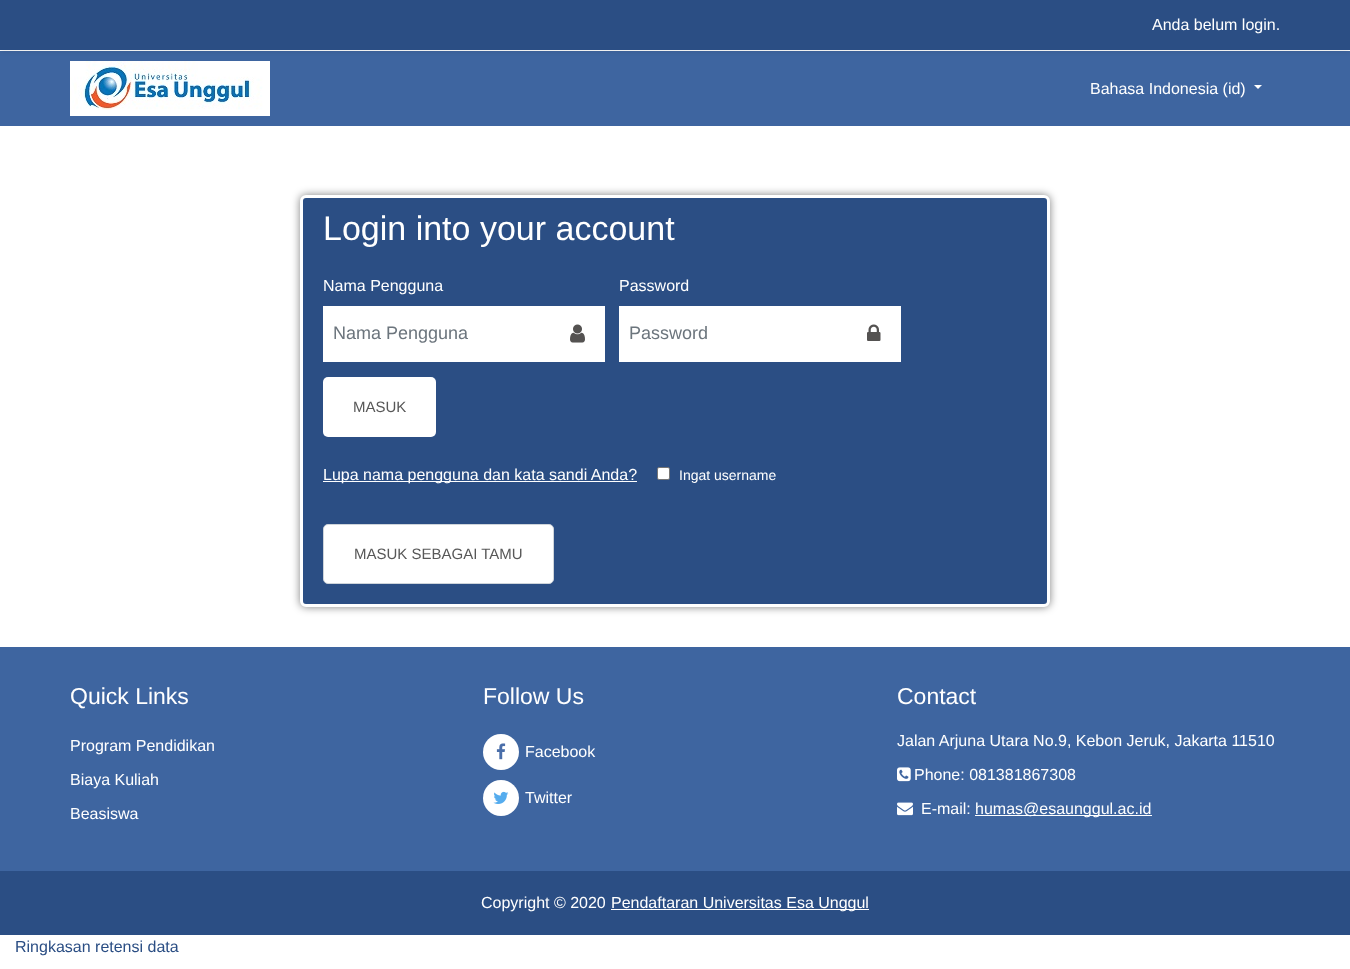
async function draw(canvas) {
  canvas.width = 1350
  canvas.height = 969
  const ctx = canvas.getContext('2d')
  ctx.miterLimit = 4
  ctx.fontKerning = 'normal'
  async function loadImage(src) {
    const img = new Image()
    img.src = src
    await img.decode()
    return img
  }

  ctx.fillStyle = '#fff'
  ctx.fillRect(0, 0, 1350, 969)
  ctx.fillStyle = '#3e65a0'
  ctx.fillRect(0, 51, 1350, 75)
  ctx.fillStyle = '#00000014'
  ctx.filter = 'blur(2px)'
  ctx.beginPath()
  ctx.rect(0, 2, 1350, 50)
  ctx.fill()
  ctx.filter = 'none'
  ctx.fillStyle = '#2b4e84'
  ctx.fillRect(0, 0, 1350, 50)
  ctx.font = '16px Liberation Sans'
  ctx.fillStyle = '#fff'
  ctx.fillText('Anda belum login.', 1152, 30)
  ctx.drawImage(await loadImage('image0.png'), 70, 61, 200, 55)
  ctx.fillText('Bahasa Indonesia (id)', 1090, 94)
  ctx.beginPath()
  ctx.moveTo(1254, 85)
  ctx.lineTo(1262, 85)
  ctx.lineTo(1258, 89)
  ctx.closePath()
  ctx.fill()
  ctx.fillStyle = '#00000080'
  ctx.filter = 'blur(4.5px)'
  ctx.beginPath()
  ctx.roundRect(300, 195, 750, 412, 6)
  ctx.fill()
  ctx.filter = 'none'
  ctx.fillStyle = '#2b4e84'
  ctx.beginPath()
  ctx.roundRect(301.5, 196.5, 747, 409, 4.5)
  ctx.fill()
  ctx.strokeStyle = '#fff'
  ctx.lineWidth = 3
  ctx.stroke()
  ctx.font = '34px Liberation Sans'
  ctx.fillStyle = '#fff'
  ctx.fillText('Login into your account', 323, 240)
  ctx.font = '16px Liberation Sans'
  ctx.fillText('Nama Pengguna', 323, 291)
  ctx.fillRect(323, 306, 282, 56)
  ctx.font = '18px Liberation Sans'
  ctx.fillStyle = '#6c757d'
  ctx.fillText('Nama Pengguna', 333, 339)
  ctx.drawImage(await loadImage('image1.png'), 570, 324, 15, 19)
  ctx.font = '16px Liberation Sans'
  ctx.fillStyle = '#fff'
  ctx.fillText('Password', 619, 291)
  ctx.fillRect(619, 306, 282, 56)
  ctx.font = '18px Liberation Sans'
  ctx.fillStyle = '#6c757d'
  ctx.fillText('Password', 629, 339)
  ctx.drawImage(await loadImage('image2.png'), 867, 324, 14, 17)
  ctx.fillStyle = '#fff'
  ctx.beginPath()
  ctx.roundRect(323, 377, 113, 60, 5)
  ctx.fill()
  ctx.font = '15px Liberation Sans'
  ctx.fillStyle = '#585858'
  ctx.fillText('MASUK', 353, 412)
  ctx.fillStyle = '#fff'
  ctx.fillRect(323, 481, 314, 1)
  ctx.font = '16px Liberation Sans'
  ctx.fillText('Lupa nama pengguna dan kata sandi Anda?', 323, 480)
  ctx.beginPath()
  ctx.roundRect(657.5, 467.5, 12, 12, 1.5)
  ctx.fill()
  ctx.strokeStyle = '#767676'
  ctx.lineWidth = 1
  ctx.stroke()
  ctx.font = '14px Liberation Sans'
  ctx.fillText('Ingat username', 679, 480)
  ctx.beginPath()
  ctx.roundRect(323.5, 524.5, 230, 59, 4.5)
  ctx.fill()
  ctx.strokeStyle = '#ced4da'
  ctx.stroke()
  ctx.font = '15px Liberation Sans'
  ctx.fillStyle = '#585858'
  ctx.fillText('MASUK SEBAGAI TAMU', 354, 559)
  ctx.fillStyle = '#3e65a0'
  ctx.fillRect(0, 647, 1350, 224)
  ctx.font = '23px Liberation Sans'
  ctx.fillStyle = '#fff'
  ctx.fillText('Quick Links', 70, 704)
  ctx.font = '16px Liberation Sans'
  ctx.fillText('Program Pendidikan', 70, 751)
  ctx.fillText('Biaya Kuliah', 70, 785)
  ctx.fillText('Beasiswa', 70, 819)
  ctx.font = '23px Liberation Sans'
  ctx.fillText('Follow Us', 483, 704)
  ctx.beginPath()
  ctx.arc(501, 752, 18, 0, 2 * Math.PI)
  ctx.fill()
  ctx.drawImage(await loadImage('image3.png'), 496, 743, 10, 17)
  ctx.font = '16px Liberation Sans'
  ctx.fillText('Facebook', 525, 757)
  ctx.beginPath()
  ctx.arc(501, 798, 18, 0, 2 * Math.PI)
  ctx.fill()
  ctx.drawImage(await loadImage('image4.png'), 493, 791, 16, 13)
  ctx.fillText('Twitter', 525, 803)
  ctx.font = '23px Liberation Sans'
  ctx.fillText('Contact', 897, 704)
  ctx.font = '16px Liberation Sans'
  ctx.fillText('Jalan Arjuna Utara No.9, Kebon Jeruk, Jakarta 11510', 897, 746)
  ctx.drawImage(await loadImage('image5.png'), 897, 767, 14, 15)
  ctx.fillText('Phone: 081381867308', 914, 780)
  ctx.drawImage(await loadImage('image6.png'), 897, 802, 16, 14)
  ctx.fillText('E-mail:', 921, 814)
  ctx.fillRect(975, 815, 177, 1)
  ctx.fillText('humas@esaunggul.ac.id', 975, 814)
  ctx.fillStyle = '#2b4e84'
  ctx.fillRect(0, 871, 1350, 64)
  ctx.fillStyle = '#fff'
  ctx.fillText('Copyright © 2020', 481, 908)
  ctx.fillRect(611, 909, 258, 1)
  ctx.fillText('Pendaftaran Universitas Esa Unggul', 611, 908)
  ctx.fillStyle = '#2b4e84'
  ctx.fillText('Ringkasan retensi data', 15, 952)
}

draw(document.querySelector('canvas'))
